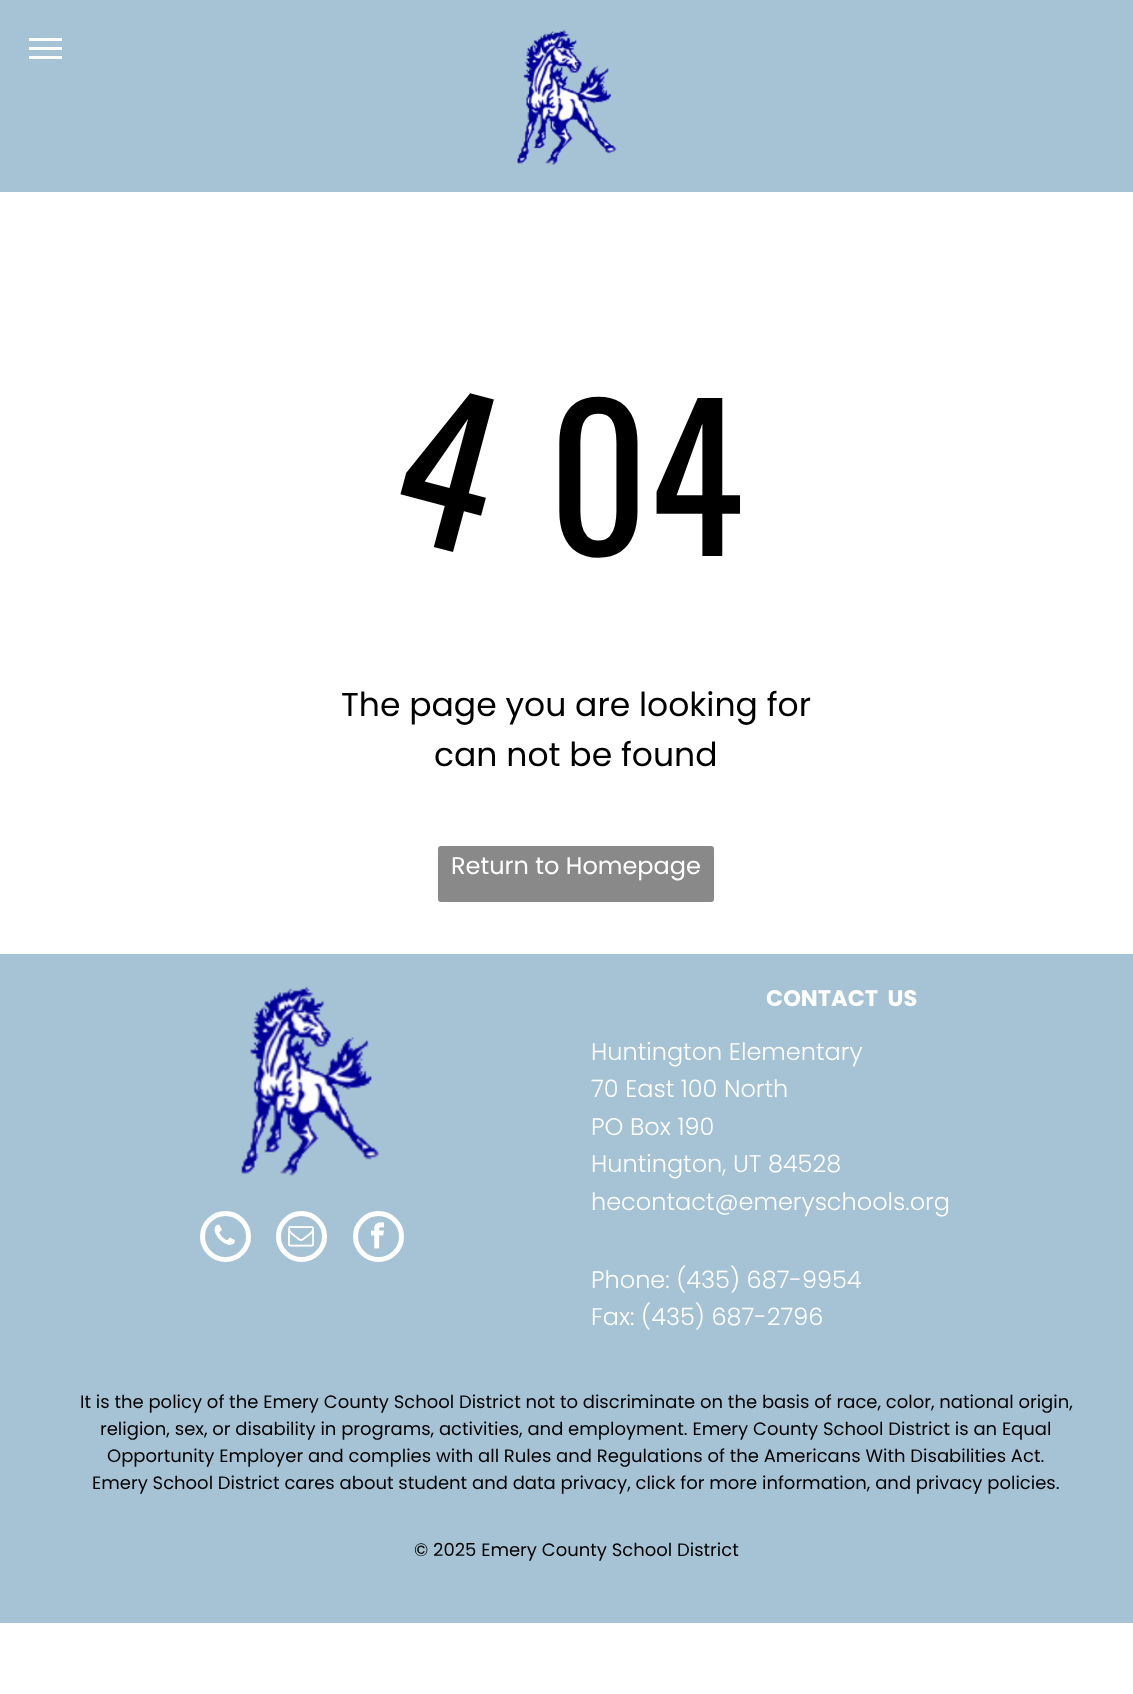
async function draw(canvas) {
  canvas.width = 1133
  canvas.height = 1694
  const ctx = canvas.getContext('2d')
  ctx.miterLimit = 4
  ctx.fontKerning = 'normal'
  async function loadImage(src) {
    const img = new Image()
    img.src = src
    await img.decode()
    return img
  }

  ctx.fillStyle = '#fff'
  ctx.fillRect(0, 0, 1133, 1694)
  ctx.fillStyle = '#a6c3d5'
  ctx.fillRect(0, 0, 1133, 192)
  ctx.drawImage(await loadImage('image0.png'), 517, 29, 100, 136)
  ctx.fillStyle = '#fff'
  ctx.fillRect(29, 38, 33, 3)
  ctx.fillRect(29, 47, 33, 3)
  ctx.fillRect(29, 56, 33, 3)
  ctx.font = '195px Oswald'
  ctx.fillStyle = '#000'
  ctx.save()
  ctx.translate(382, 533)
  ctx.rotate(15 * Math.PI / 180)
  ctx.fillText('4', 0, 0)
  ctx.restore()
  ctx.fillText('04', 548, 556)
  ctx.font = '33px Poppins'
  ctx.fillText('The page you are looking for', 341, 716)
  ctx.fillText('can not be found', 434, 766)
  ctx.fillStyle = '#898989'
  ctx.beginPath()
  ctx.roundRect(438, 846, 276, 56, 3)
  ctx.fill()
  ctx.font = '24px Poppins'
  ctx.fillStyle = '#fff'
  ctx.fillText('Return to Homepage', 451, 874)
  ctx.fillStyle = '#a6c3d5'
  ctx.fillRect(0, 954, 1133, 669)
  ctx.drawImage(await loadImage('image1.png'), 241, 986, 138, 190)
  ctx.beginPath()
  ctx.arc(225.5, 1236.5, 23, 0, 2 * Math.PI)
  ctx.strokeStyle = '#fff'
  ctx.lineWidth = 5
  ctx.stroke()
  ctx.drawImage(await loadImage('image2.png'), 214, 1224, 21, 21)
  ctx.beginPath()
  ctx.arc(301.5, 1236.5, 23, 0, 2 * Math.PI)
  ctx.stroke()
  ctx.drawImage(await loadImage('image3.png'), 288, 1226, 26, 21)
  ctx.beginPath()
  ctx.arc(378.5, 1236.5, 23, 0, 2 * Math.PI)
  ctx.stroke()
  ctx.drawImage(await loadImage('image4.png'), 371, 1222, 13, 27)
  ctx.font = 'bold 22.5px Poppins'
  ctx.fillStyle = '#fff'
  ctx.fillText('CONTACT  US', 766, 1006)
  ctx.font = '300 24px Poppins'
  ctx.fillText('Huntington Elementary', 591, 1060)
  ctx.fillText('70 East 100 North', 591, 1097)
  ctx.fillText('PO Box 190', 591, 1135)
  ctx.fillText('Huntington, UT 84528', 591, 1172)
  ctx.fillText('hecontact@emeryschools.org', 591, 1210)
  ctx.fillText('Phone: (435) 687-9954', 591, 1288)
  ctx.fillText('Fax: (435) 687-2796', 591, 1325)
  ctx.font = '18px Poppins'
  ctx.fillStyle = '#000'
  ctx.fillText('It is the policy of the Emery County School District not to discriminate on the basis of race, color, national origin,', 80, 1408)
  ctx.fillText('religion, sex, or disability in programs, activities, and employment. Emery County School District is an Equal', 100, 1435)
  ctx.fillText('Opportunity Employer and complies with all Rules and Regulations of the Americans With Disabilities Act.', 107, 1462)
  ctx.fillText('Emery School District cares about student and data privacy, click for more information, and privacy policies.', 92, 1489)
  ctx.fillText('© 2025 Emery County School District', 414, 1556)
}

draw(document.querySelector('canvas'))
